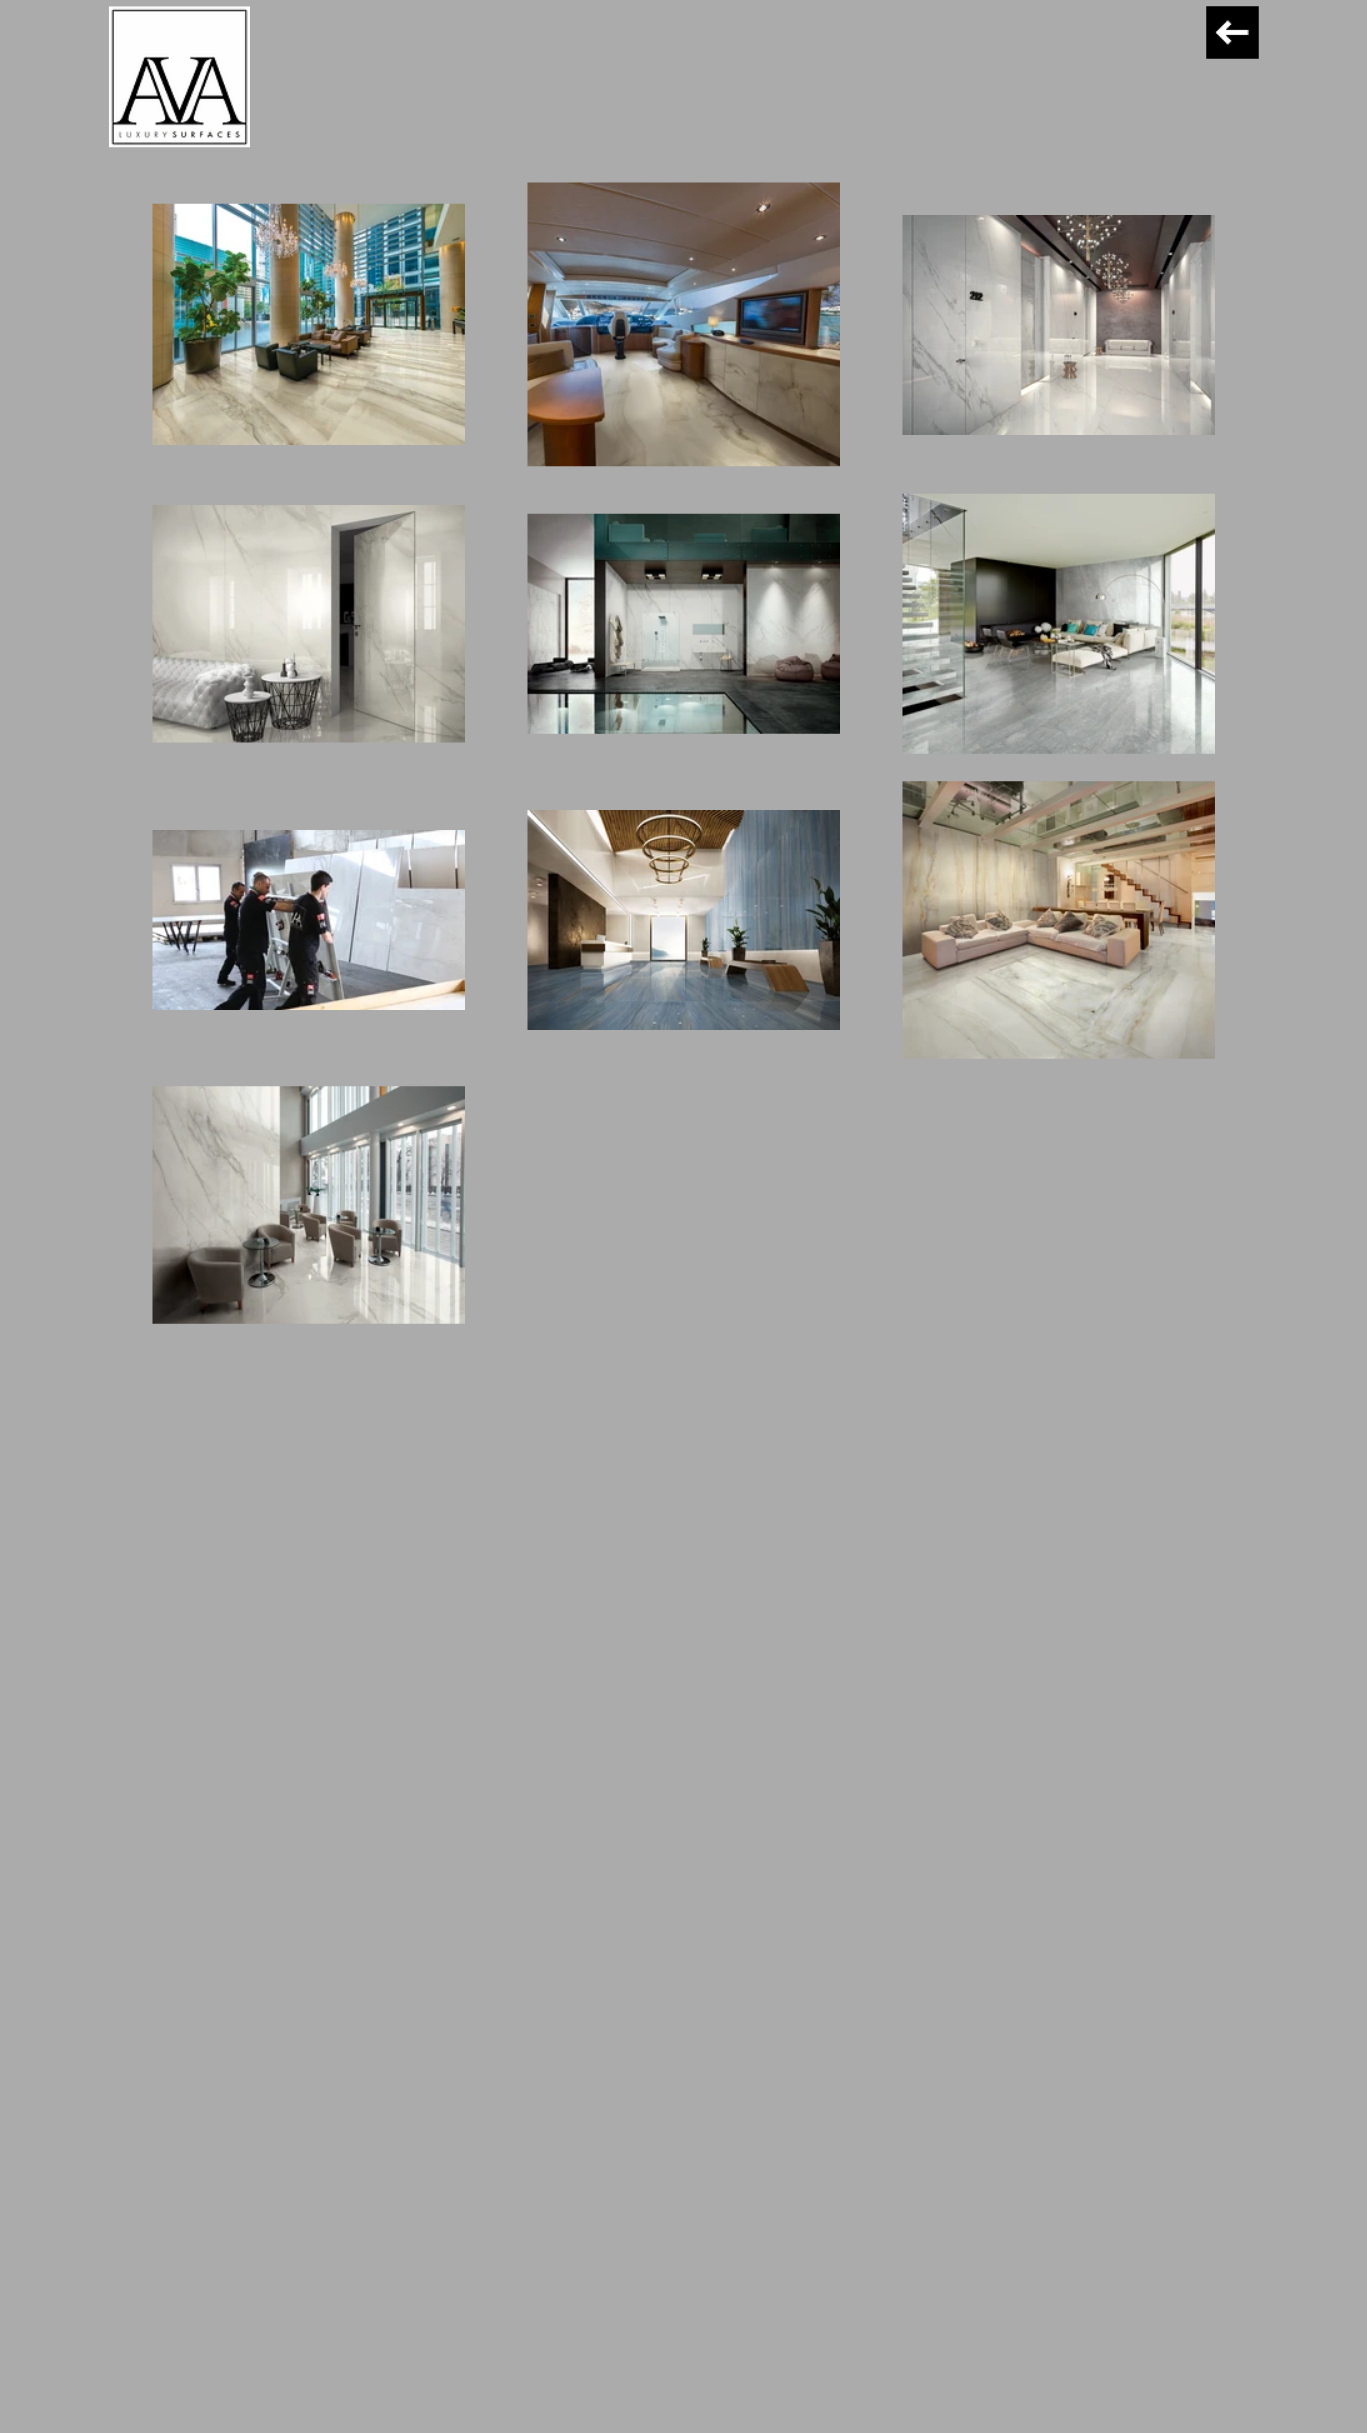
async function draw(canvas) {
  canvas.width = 1367
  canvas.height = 2433
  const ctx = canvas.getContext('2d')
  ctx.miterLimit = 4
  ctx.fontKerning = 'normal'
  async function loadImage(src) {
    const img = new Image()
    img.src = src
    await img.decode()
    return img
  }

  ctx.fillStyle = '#ababab'
  ctx.fillRect(0, 0, 1367, 2433)
  ctx.drawImage(await loadImage('image0.png'), 108, 6, 142, 142)
  ctx.drawImage(await loadImage('image1.png'), 1206, 6, 53, 53)
  ctx.drawImage(await loadImage('image2.png'), 152, 203, 313, 242)
  ctx.drawImage(await loadImage('image3.png'), 527, 182, 313, 285)
  ctx.drawImage(await loadImage('image4.png'), 902, 215, 313, 220)
  ctx.drawImage(await loadImage('image5.png'), 152, 505, 313, 238)
  ctx.drawImage(await loadImage('image6.png'), 527, 513, 313, 221)
  ctx.drawImage(await loadImage('image7.png'), 902, 493, 313, 261)
  ctx.drawImage(await loadImage('image8.png'), 152, 830, 313, 180)
  ctx.drawImage(await loadImage('image9.png'), 527, 810, 313, 220)
  ctx.drawImage(await loadImage('image10.png'), 902, 781, 313, 278)
  ctx.drawImage(await loadImage('image11.png'), 152, 1086, 313, 238)
}

draw(document.querySelector('canvas'))
